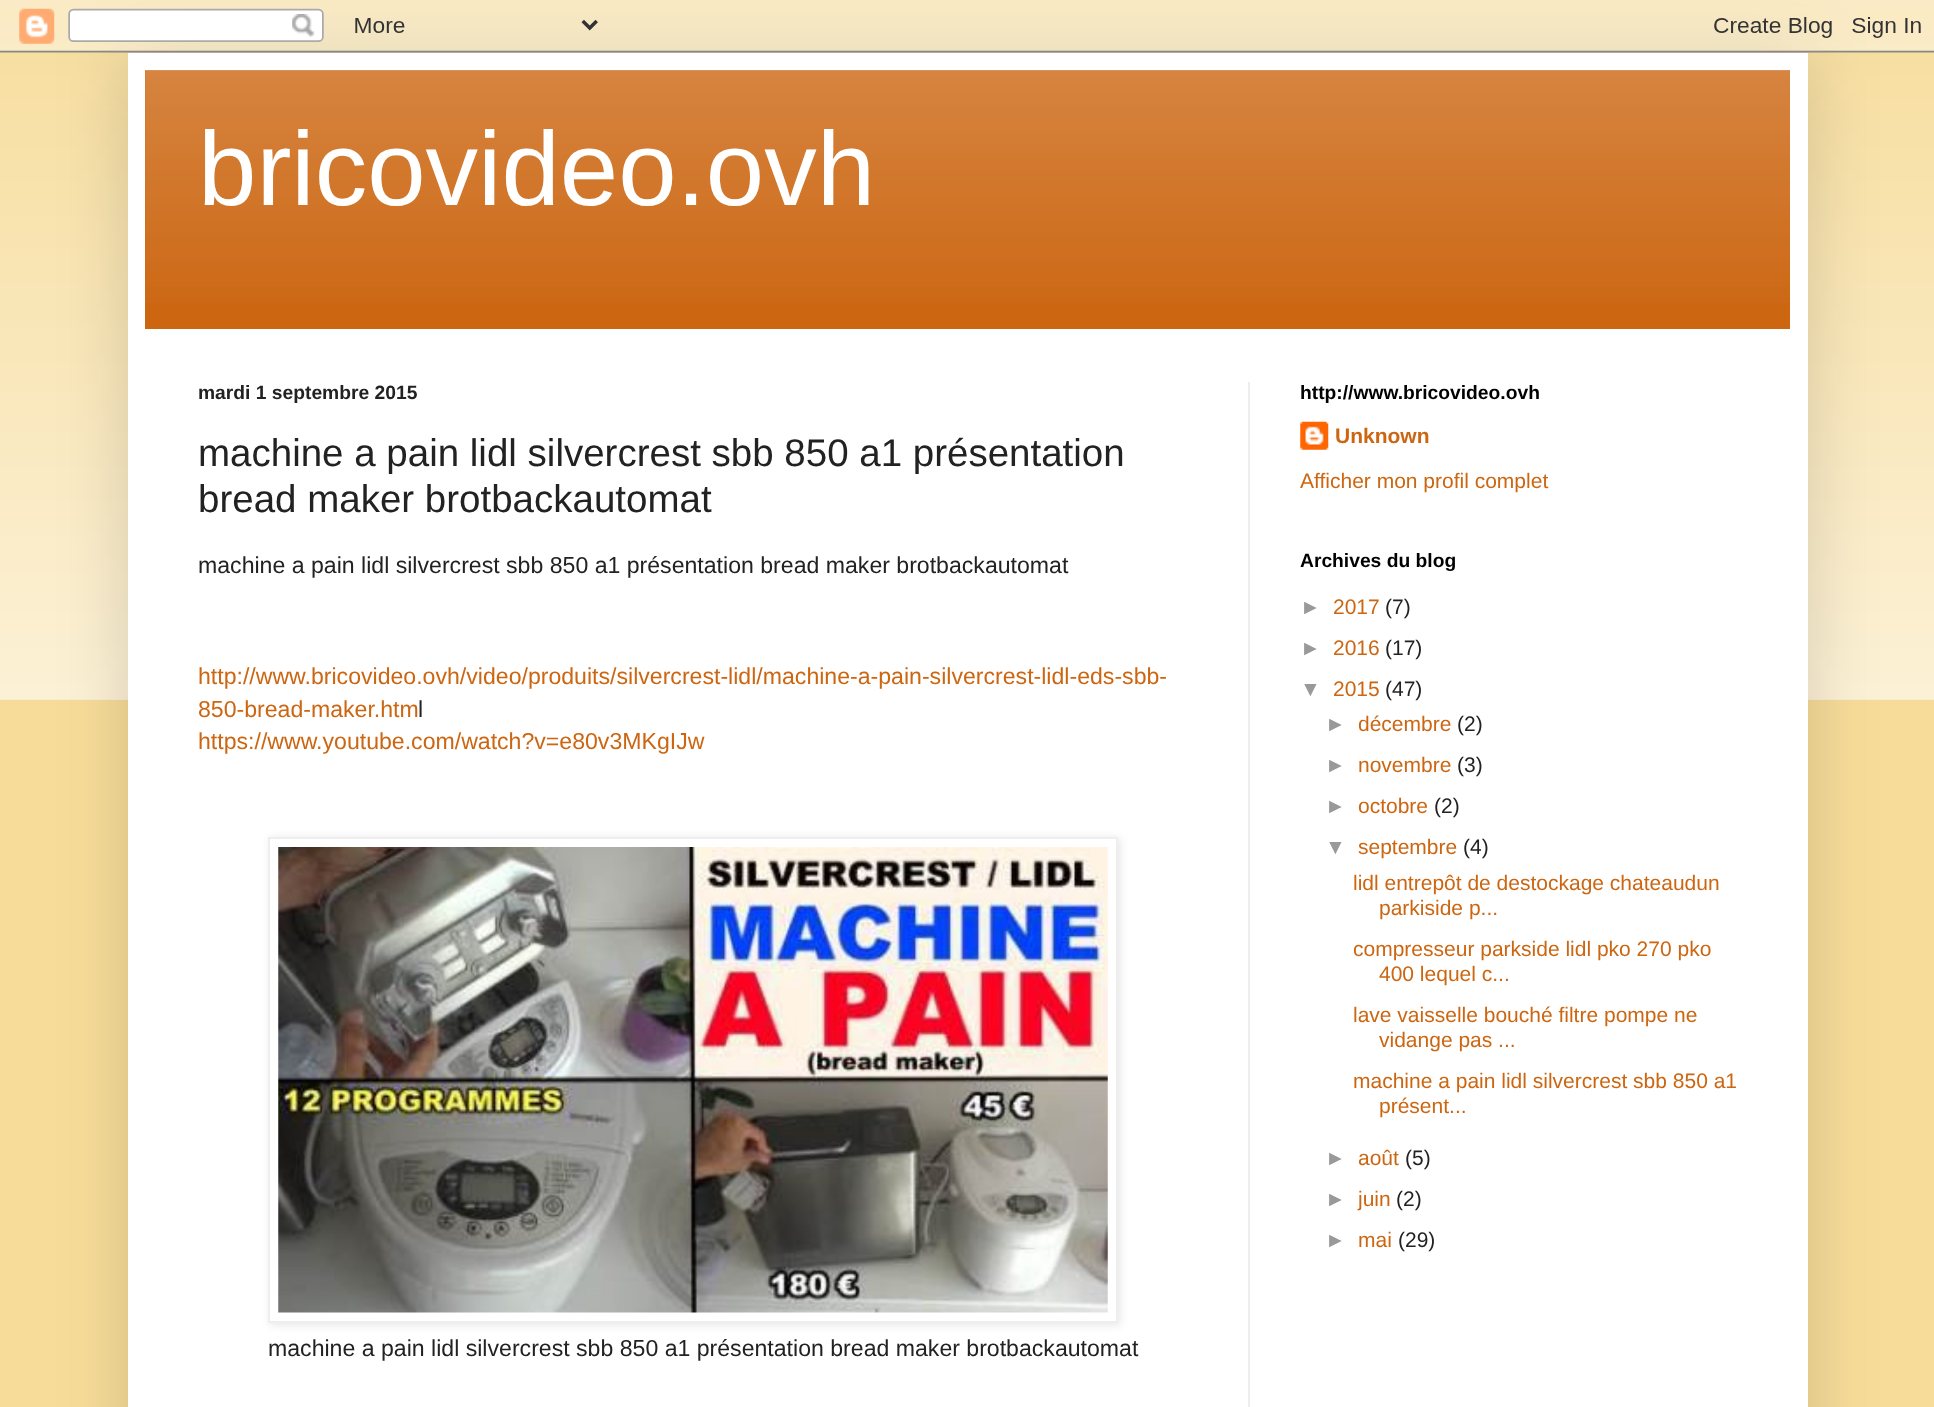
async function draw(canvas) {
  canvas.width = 1934
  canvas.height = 1407
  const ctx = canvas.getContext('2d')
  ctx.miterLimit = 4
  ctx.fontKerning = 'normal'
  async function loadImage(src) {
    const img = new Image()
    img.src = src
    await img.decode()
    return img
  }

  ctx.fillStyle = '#f7dc99'
  ctx.fillRect(0, 0, 1934, 1407)
  ctx.drawImage(await loadImage('image0.png'), 0, 0, 1934, 700)
  ctx.fillStyle = '#00000026'
  ctx.filter = 'blur(35px)'
  ctx.beginPath()
  ctx.rect(128, 53, 1680, 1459)
  ctx.fill()
  ctx.filter = 'none'
  ctx.drawImage(await loadImage('image1.png'), 0, 0, 1934, 53)
  ctx.fillStyle = '#fff'
  ctx.fillRect(128, 53, 1680, 1354)
  ctx.fillStyle = '#c61'
  ctx.fillRect(145, 70, 1645, 259)
  ctx.drawImage(await loadImage('image2.png'), 145, 70, 1645, 233)
  ctx.font = '105px Liberation Sans'
  ctx.fillStyle = '#fff'
  ctx.fillText('bricovideo.ovh', 198, 205)
  ctx.fillStyle = '#eee'
  ctx.fillRect(1248, 382, 2, 1025)
  ctx.font = 'bold 19.25px Liberation Sans'
  ctx.fillStyle = '#222'
  ctx.fillText('mardi 1 septembre 2015', 198, 399)
  ctx.font = '38.5px Liberation Sans'
  ctx.fillText('machine a pain lidl silvercrest sbb 850 a1 présentation', 198, 466)
  ctx.fillText('bread maker brotbackautomat', 198, 512)
  ctx.font = '23.1px Liberation Sans'
  ctx.fillText('machine a pain lidl silvercrest sbb 850 a1 présentation bread maker brotbackautomat', 198, 573)
  ctx.fillStyle = '#c61'
  ctx.fillText('http://www.bricovideo.ovh/video/produits/silvercrest-lidl/machine-a-pain-silvercrest-lidl-eds-sbb-', 198, 684)
  ctx.fillText('850-bread-maker.htm', 198, 717)
  ctx.fillStyle = '#222'
  ctx.fillText('l', 418, 717)
  ctx.fillStyle = '#c61'
  ctx.fillText('https://www.youtube.com/watch?v=e80v3MKgIJw', 198, 749)
  ctx.save()
  ctx.beginPath()
  ctx.moveTo(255, 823)
  ctx.lineTo(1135, 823)
  ctx.lineTo(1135, 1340)
  ctx.lineTo(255, 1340)
  ctx.closePath()
  ctx.moveTo(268, 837)
  ctx.lineTo(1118, 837)
  ctx.lineTo(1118, 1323)
  ctx.lineTo(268, 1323)
  ctx.closePath()
  ctx.clip('evenodd')
  ctx.fillStyle = '#0000001a'
  ctx.filter = 'blur(4.5px)'
  ctx.beginPath()
  ctx.rect(270, 838, 850, 487)
  ctx.fill()
  ctx.filter = 'none'
  ctx.restore()
  ctx.strokeStyle = '#eee'
  ctx.lineWidth = 2
  ctx.strokeRect(269, 838, 848, 484)
  ctx.drawImage(await loadImage('image3.png'), 278, 847, 830, 466)
  ctx.fillStyle = '#222'
  ctx.fillText('machine a pain lidl silvercrest sbb 850 a1 présentation bread maker brotbackautomat', 268, 1356)
  ctx.font = 'bold 19.25px Liberation Sans'
  ctx.fillStyle = '#000'
  ctx.fillText('http://www.bricovideo.ovh', 1300, 399)
  ctx.drawImage(await loadImage('image4.png'), 1300, 421, 29, 29)
  ctx.font = 'bold 21px Liberation Sans'
  ctx.fillStyle = '#c61'
  ctx.fillText('Unknown', 1335, 443)
  ctx.font = '21px Liberation Sans'
  ctx.fillText('Afficher mon profil complet', 1300, 488)
  ctx.font = 'bold 19.25px Liberation Sans'
  ctx.fillStyle = '#000'
  ctx.fillText('Archives du blog', 1300, 567)
  ctx.font = '21px Liberation Sans'
  ctx.fillStyle = '#999'
  ctx.fillText('►', 1300, 614)
  ctx.fillStyle = '#c61'
  ctx.fillText('2017', 1333, 614)
  ctx.fillStyle = '#222'
  ctx.fillText('(7)', 1385, 614)
  ctx.fillStyle = '#999'
  ctx.fillText('►', 1300, 655)
  ctx.fillStyle = '#c61'
  ctx.fillText('2016', 1333, 655)
  ctx.fillStyle = '#222'
  ctx.fillText('(17)', 1385, 655)
  ctx.fillStyle = '#999'
  ctx.fillText('▼', 1300, 696)
  ctx.fillStyle = '#c61'
  ctx.fillText('2015', 1333, 696)
  ctx.fillStyle = '#222'
  ctx.fillText('(47)', 1385, 696)
  ctx.fillStyle = '#999'
  ctx.fillText('►', 1325, 731)
  ctx.fillStyle = '#c61'
  ctx.fillText('décembre', 1358, 731)
  ctx.fillStyle = '#222'
  ctx.fillText('(2)', 1457, 731)
  ctx.fillStyle = '#999'
  ctx.fillText('►', 1325, 772)
  ctx.fillStyle = '#c61'
  ctx.fillText('novembre', 1358, 772)
  ctx.fillStyle = '#222'
  ctx.fillText('(3)', 1457, 772)
  ctx.fillStyle = '#999'
  ctx.fillText('►', 1325, 813)
  ctx.fillStyle = '#c61'
  ctx.fillText('octobre', 1358, 813)
  ctx.fillStyle = '#222'
  ctx.fillText('(2)', 1434, 813)
  ctx.fillStyle = '#999'
  ctx.fillText('▼', 1325, 854)
  ctx.fillStyle = '#c61'
  ctx.fillText('septembre', 1358, 854)
  ctx.fillStyle = '#222'
  ctx.fillText('(4)', 1463, 854)
  ctx.fillStyle = '#c61'
  ctx.fillText('lidl entrepôt de destockage chateaudun', 1353, 890)
  ctx.fillText('parkiside p...', 1379, 915)
  ctx.fillText('compresseur parkside lidl pko 270 pko', 1353, 956)
  ctx.fillText('400 lequel c...', 1379, 981)
  ctx.fillText('lave vaisselle bouché filtre pompe ne', 1353, 1022)
  ctx.fillText('vidange pas ...', 1379, 1047)
  ctx.fillText('machine a pain lidl silvercrest sbb 850 a1', 1353, 1088)
  ctx.fillText('présent...', 1379, 1113)
  ctx.fillStyle = '#999'
  ctx.fillText('►', 1325, 1165)
  ctx.fillStyle = '#c61'
  ctx.fillText('août', 1358, 1165)
  ctx.fillStyle = '#222'
  ctx.fillText('(5)', 1405, 1165)
  ctx.fillStyle = '#999'
  ctx.fillText('►', 1325, 1206)
  ctx.fillStyle = '#c61'
  ctx.fillText('juin', 1358, 1206)
  ctx.fillStyle = '#222'
  ctx.fillText('(2)', 1396, 1206)
  ctx.fillStyle = '#999'
  ctx.fillText('►', 1325, 1247)
  ctx.fillStyle = '#c61'
  ctx.fillText('mai', 1358, 1247)
  ctx.fillStyle = '#222'
  ctx.fillText('(29)', 1398, 1247)
}

draw(document.querySelector('canvas'))
